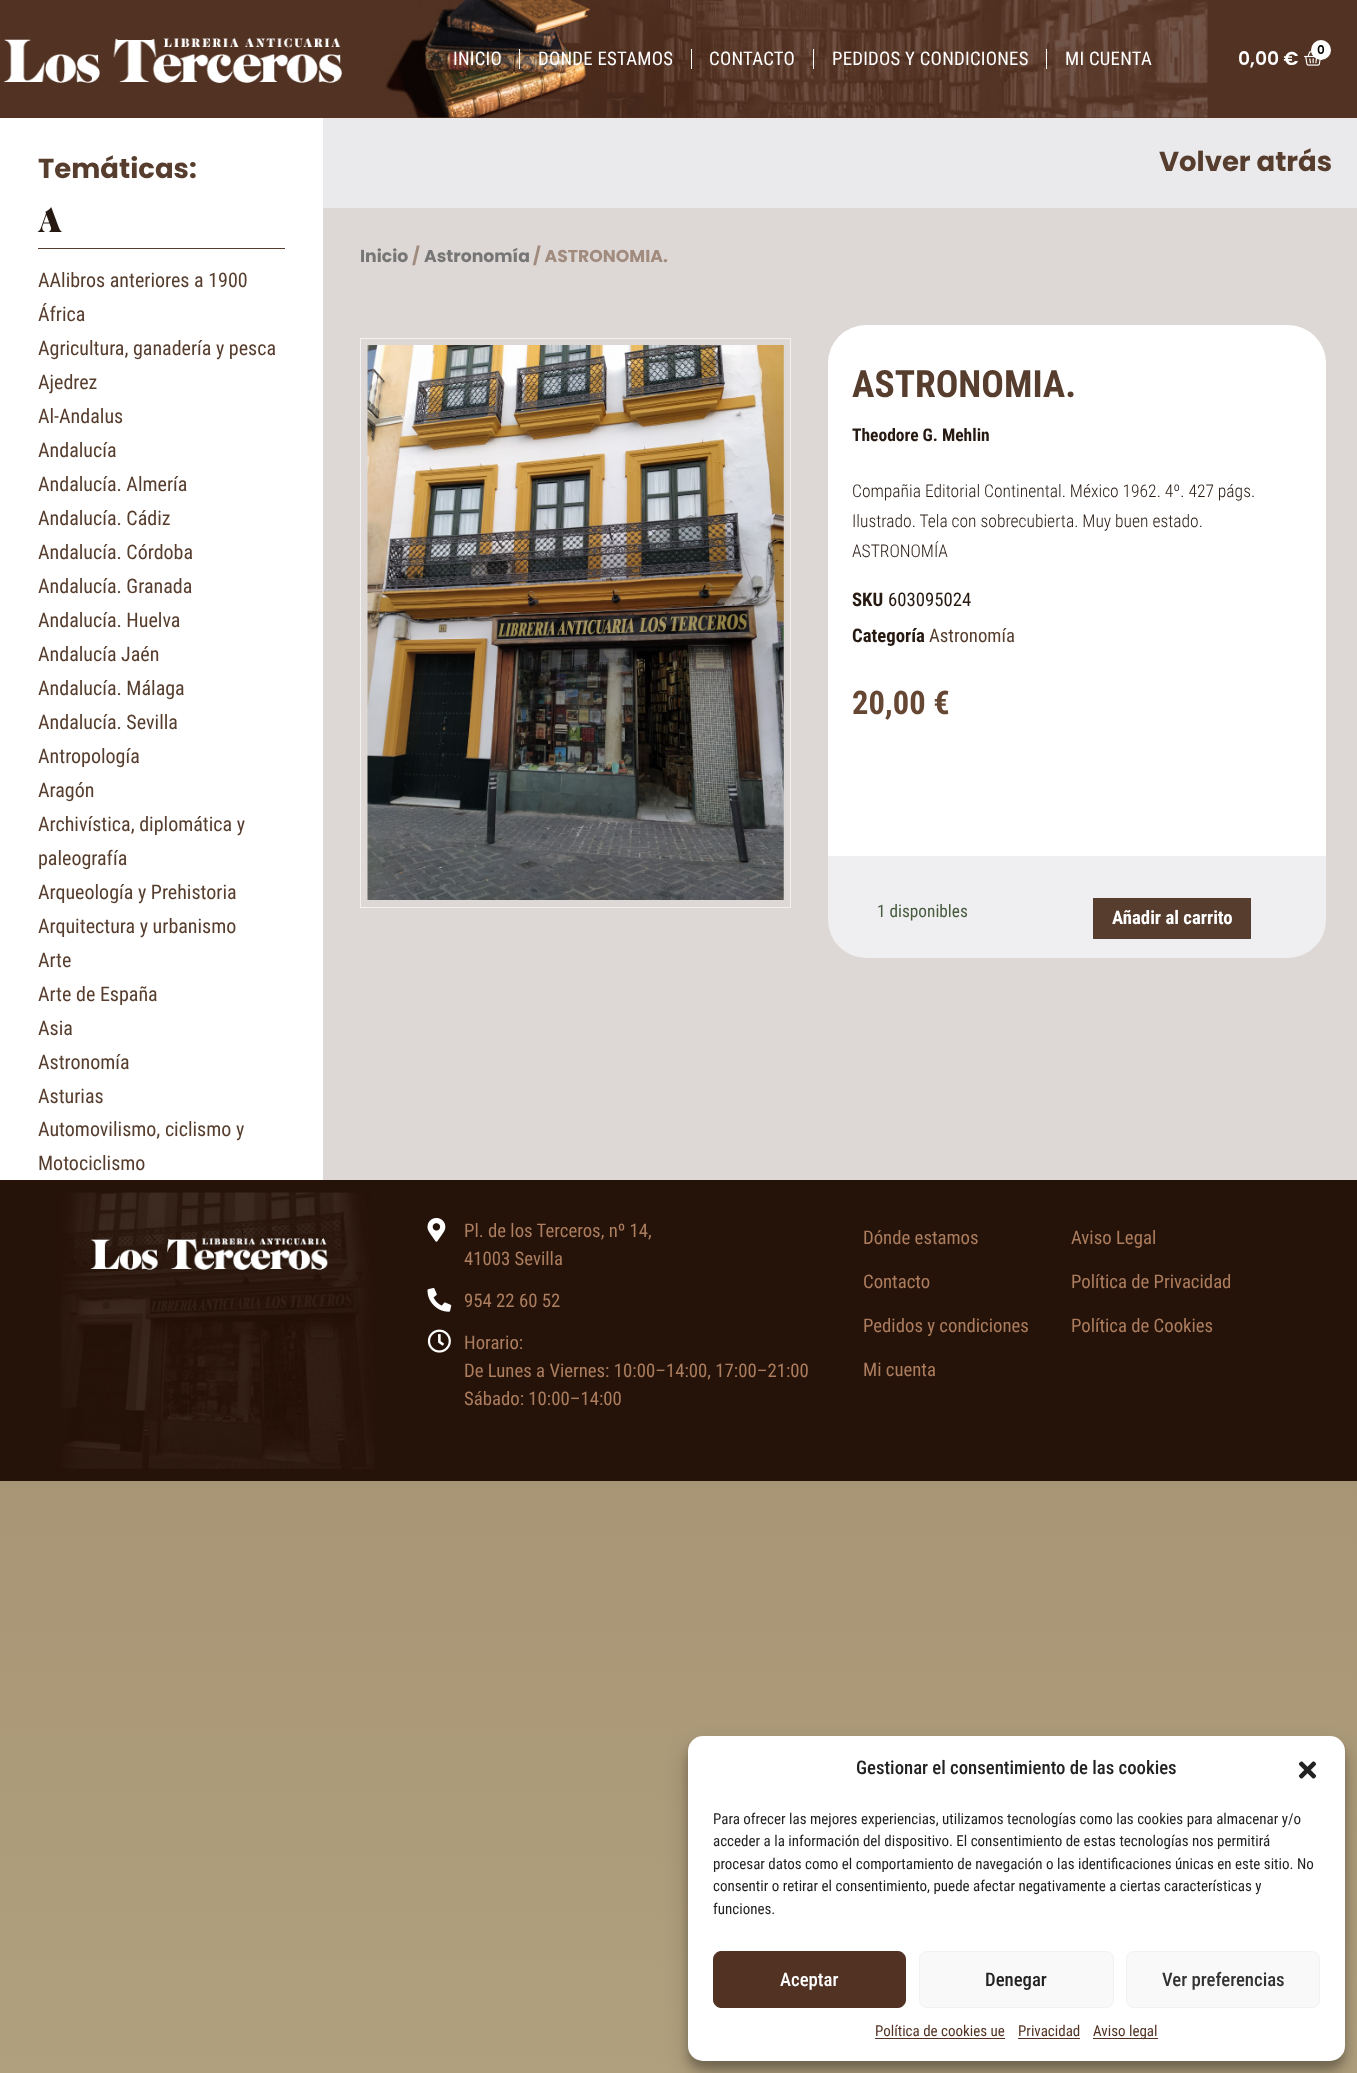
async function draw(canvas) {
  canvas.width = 1357
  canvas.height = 2073
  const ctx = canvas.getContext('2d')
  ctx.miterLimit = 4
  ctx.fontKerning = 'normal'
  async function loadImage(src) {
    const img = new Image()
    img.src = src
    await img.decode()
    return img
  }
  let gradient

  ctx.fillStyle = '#fff'
  ctx.fillRect(0, 0, 1357, 2073)
  gradient = ctx.createLinearGradient(679, 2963, 679, 1481)
  gradient.addColorStop(0, '#bdb18b')
  gradient.addColorStop(1, '#a89575')
  ctx.fillStyle = gradient
  ctx.fillRect(0, 1481, 1357, 592)
  ctx.fillStyle = '#523223'
  ctx.fillRect(0, 0, 1357, 118)
  ctx.drawImage(await loadImage('image0.png'), 4, 37, 338, 46)
  ctx.drawImage(await loadImage('image1.png'), 385, 0, 823, 118)
  ctx.letterSpacing = '0.25px'
  ctx.font = '18.75px Roboto Condensed'
  ctx.fillStyle = '#fff'
  ctx.fillText('INICIO', 453, 65)
  ctx.fillRect(519, 49, 1, 20)
  ctx.fillText('DONDE ESTAMOS', 538, 65)
  ctx.fillRect(691, 49, 1, 20)
  ctx.fillText('CONTACTO', 709, 65)
  ctx.fillRect(813, 49, 1, 20)
  ctx.fillText('PEDIDOS Y CONDICIONES', 832, 65)
  ctx.fillRect(1046, 49, 1, 20)
  ctx.fillText('MI CUENTA', 1065, 65)
  ctx.drawImage(await loadImage('image2.png'), 1304, 51, 17, 15)
  ctx.beginPath()
  ctx.arc(1321, 50, 10, 0, 2 * Math.PI)
  ctx.fill()
  ctx.letterSpacing = '0px'
  ctx.font = '600 12px Poppins'
  ctx.fillStyle = '#000'
  ctx.fillText('0', 1317, 54)
  ctx.font = '600 18.75px Poppins'
  ctx.fillStyle = '#fff'
  ctx.fillText('0,00 €', 1238, 65)
  ctx.fillStyle = '#ddd8d5'
  ctx.fillRect(323, 208, 1034, 972)
  ctx.font = 'bold 27.5px Poppins'
  ctx.fillStyle = '#563d2d'
  ctx.fillText('Temáticas:', 38, 178)
  ctx.fillRect(38, 248, 247, 1)
  ctx.font = '30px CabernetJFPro'
  ctx.fillStyle = '#261911'
  ctx.fillText('A', 38, 232)
  ctx.font = '20px Roboto Condensed'
  ctx.fillStyle = '#563d2d'
  ctx.fillText('AAlibros anteriores a 1900', 38, 287)
  ctx.fillText('África', 38, 321)
  ctx.fillText('Agricultura, ganadería y pesca', 38, 355)
  ctx.fillText('Ajedrez', 38, 389)
  ctx.fillText('Al-Andalus', 38, 423)
  ctx.fillText('Andalucía', 38, 457)
  ctx.fillText('Andalucía. Almería', 38, 491)
  ctx.fillText('Andalucía. Cádiz', 38, 525)
  ctx.fillText('Andalucía. Córdoba', 38, 559)
  ctx.fillText('Andalucía. Granada', 38, 593)
  ctx.fillText('Andalucía. Huelva', 38, 627)
  ctx.fillText('Andalucía Jaén', 38, 661)
  ctx.fillText('Andalucía. Málaga', 38, 695)
  ctx.fillText('Andalucía. Sevilla', 38, 729)
  ctx.fillText('Antropología', 38, 763)
  ctx.fillText('Aragón', 38, 797)
  ctx.fillText('Archivística, diplomática y', 38, 831)
  ctx.fillText('paleografía', 38, 865)
  ctx.fillText('Arqueología y Prehistoria', 38, 899)
  ctx.fillText('Arquitectura y urbanismo', 38, 933)
  ctx.fillText('Arte', 38, 967)
  ctx.fillText('Arte de España', 38, 1001)
  ctx.fillText('Asia', 38, 1035)
  ctx.fillText('Astronomía', 38, 1069)
  ctx.fillText('Asturias', 38, 1103)
  ctx.fillText('Automovilismo, ciclismo y', 38, 1136)
  ctx.fillText('Motociclismo', 38, 1170)
  ctx.fillStyle = '#eaeaec'
  ctx.fillRect(323, 118, 1034, 90)
  ctx.font = 'bold 27.5px Poppins'
  ctx.fillStyle = '#563d2d'
  ctx.fillText('Volver atrás', 1159, 171)
  ctx.font = 'bold 17.25px Poppins'
  ctx.fillStyle = '#767676'
  ctx.fillText('Inicio', 360, 262)
  ctx.fillStyle = '#a18b7e'
  ctx.fillText('/', 412, 262)
  ctx.fillStyle = '#767676'
  ctx.fillText('Astronomía', 424, 262)
  ctx.fillStyle = '#a18b7e'
  ctx.fillText('/ ASTRONOMIA.', 533, 262)
  ctx.strokeStyle = '#f2f2f2'
  ctx.strokeRect(360.5, 338.5, 430, 569)
  ctx.drawImage(await loadImage('image3.png'), 367, 345, 417, 555)
  ctx.fillStyle = '#fff'
  ctx.beginPath()
  ctx.roundRect(828, 325, 498, 531, [38, 38, 0, 0])
  ctx.fill()
  ctx.fillStyle = '#efeff1'
  ctx.beginPath()
  ctx.roundRect(828, 856, 498, 102, [0, 0, 38, 38])
  ctx.fill()
  ctx.font = 'bold 37.5px Roboto Condensed'
  ctx.fillStyle = '#563d2d'
  ctx.fillText('ASTRONOMIA.', 852, 397)
  ctx.font = 'bold 17.5px Roboto Condensed'
  ctx.fillStyle = '#261911'
  ctx.fillText('Theodore G. Mehlin', 852, 441)
  ctx.font = '300 17.5px Roboto Condensed'
  ctx.fillText('Compañia Editorial Continental. México 1962. 4º. 427 págs.', 852, 497)
  ctx.fillText('Ilustrado. Tela con sobrecubierta. Muy buen estado.', 852, 527)
  ctx.fillText('ASTRONOMÍA', 852, 557)
  ctx.font = 'bold 18.75px Roboto Condensed'
  ctx.fillText('SKU', 852, 606)
  ctx.font = '18.75px Roboto Condensed'
  ctx.fillText('603095024', 888, 606)
  ctx.font = 'bold 18.75px Roboto Condensed'
  ctx.fillText('Categoría', 852, 642)
  ctx.font = '18.75px Roboto Condensed'
  ctx.fillStyle = '#563d2d'
  ctx.fillText('Astronomía', 929, 642)
  ctx.font = 'bold 32.5px Roboto Condensed'
  ctx.fillStyle = '#654734'
  ctx.fillText('20,00 €', 852, 714)
  ctx.font = '17.25px Roboto Condensed'
  ctx.fillStyle = '#475b3f'
  ctx.fillText('1 disponibles', 877, 917)
  ctx.fillStyle = '#573d2e'
  ctx.fillRect(1093, 898, 158, 41)
  ctx.font = 'bold 18.75px Roboto Condensed'
  ctx.fillStyle = '#fff'
  ctx.fillText('Añadir al carrito', 1112, 924)
  ctx.fillStyle = '#251309'
  ctx.fillRect(0, 1180, 1357, 301)
  ctx.drawImage(await loadImage('image4.png'), 61, 1192, 314, 277)
  ctx.drawImage(await loadImage('image5.png'), 427, 1218, 19, 24)
  ctx.font = '18.75px Roboto Condensed'
  ctx.fillStyle = '#ac7d5e'
  ctx.fillText('Pl. de los Terceros, nº 14,', 464, 1237)
  ctx.fillText('41003 Sevilla', 464, 1265)
  ctx.drawImage(await loadImage('image6.png'), 427, 1288, 25, 24)
  ctx.fillText('954 22 60 52', 464, 1307)
  ctx.drawImage(await loadImage('image7.png'), 427, 1329, 24, 24)
  ctx.fillText('Horario:', 464, 1349)
  ctx.fillText('De Lunes a Viernes: 10:00–14:00, 17:00–21:00', 464, 1377)
  ctx.fillText('Sábado: 10:00–14:00', 464, 1405)
  ctx.fillText('Dónde estamos', 863, 1244)
  ctx.fillText('Contacto', 863, 1288)
  ctx.fillText('Pedidos y condiciones', 863, 1332)
  ctx.fillText('Mi cuenta', 863, 1376)
  ctx.fillText('Aviso Legal', 1071, 1244)
  ctx.fillText('Política de Privacidad', 1071, 1288)
  ctx.fillText('Política de Cookies', 1071, 1332)
  ctx.fillStyle = '#0000003b'
  ctx.filter = 'blur(4px)'
  ctx.beginPath()
  ctx.roundRect(688, 1744, 657, 325, 15)
  ctx.fill()
  ctx.filter = 'none'
  ctx.fillStyle = '#00000030'
  ctx.filter = 'blur(12.5px)'
  ctx.beginPath()
  ctx.roundRect(688, 1749, 657, 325, 15)
  ctx.fill()
  ctx.filter = 'none'
  ctx.fillStyle = '#fff'
  ctx.beginPath()
  ctx.roundRect(688, 1736, 657, 325, 15)
  ctx.fill()
  ctx.font = '500 18.75px Roboto Condensed'
  ctx.fillStyle = '#222'
  ctx.fillText('Gestionar el consentimiento de las cookies', 856, 1774)
  ctx.drawImage(await loadImage('image8.png'), 1298, 1761, 19, 18)
  ctx.font = '15px Roboto Condensed'
  ctx.fillText('Para ofrecer las mejores experiencias, utilizamos tecnologías como las cookies para almacenar y/o', 713, 1824)
  ctx.fillText('acceder a la información del dispositivo. El consentimiento de estas tecnologías nos permitirá', 713, 1846)
  ctx.fillText('procesar datos como el comportamiento de navegación o las identificaciones únicas en este sitio. No', 713, 1869)
  ctx.fillText('consentir o retirar el consentimiento, puede afectar negativamente a ciertas características y', 713, 1891)
  ctx.fillText('funciones.', 713, 1914)
  ctx.fillStyle = '#523223'
  ctx.beginPath()
  ctx.roundRect(713.5, 1951.5, 192, 56, 7.5)
  ctx.fill()
  ctx.strokeStyle = '#523223'
  ctx.stroke()
  ctx.font = '500 18.75px Roboto Condensed'
  ctx.fillStyle = '#fff'
  ctx.fillText('Aceptar', 780, 1986)
  ctx.fillStyle = '#f9f9f9'
  ctx.beginPath()
  ctx.roundRect(919.5, 1951.5, 194, 56, 7.5)
  ctx.fill()
  ctx.strokeStyle = '#f2f2f2'
  ctx.stroke()
  ctx.fillStyle = '#222'
  ctx.fillText('Denegar', 985, 1986)
  ctx.fillStyle = '#f9f9f9'
  ctx.beginPath()
  ctx.roundRect(1126.5, 1951.5, 193, 56, 7.5)
  ctx.fill()
  ctx.stroke()
  ctx.fillStyle = '#333'
  ctx.fillText('Ver preferencias', 1162, 1986)
  ctx.font = '15px Roboto Condensed'
  ctx.fillStyle = '#523223'
  ctx.fillText('Política de cookies ue', 875, 2036)
  ctx.fillRect(875, 2038, 130, 1)
  ctx.fillText('Privacidad', 1018, 2036)
  ctx.fillRect(1018, 2038, 62, 1)
  ctx.fillRect(1093, 2038, 65, 1)
  ctx.fillText('Aviso legal', 1093, 2036)
}

draw(document.querySelector('canvas'))
